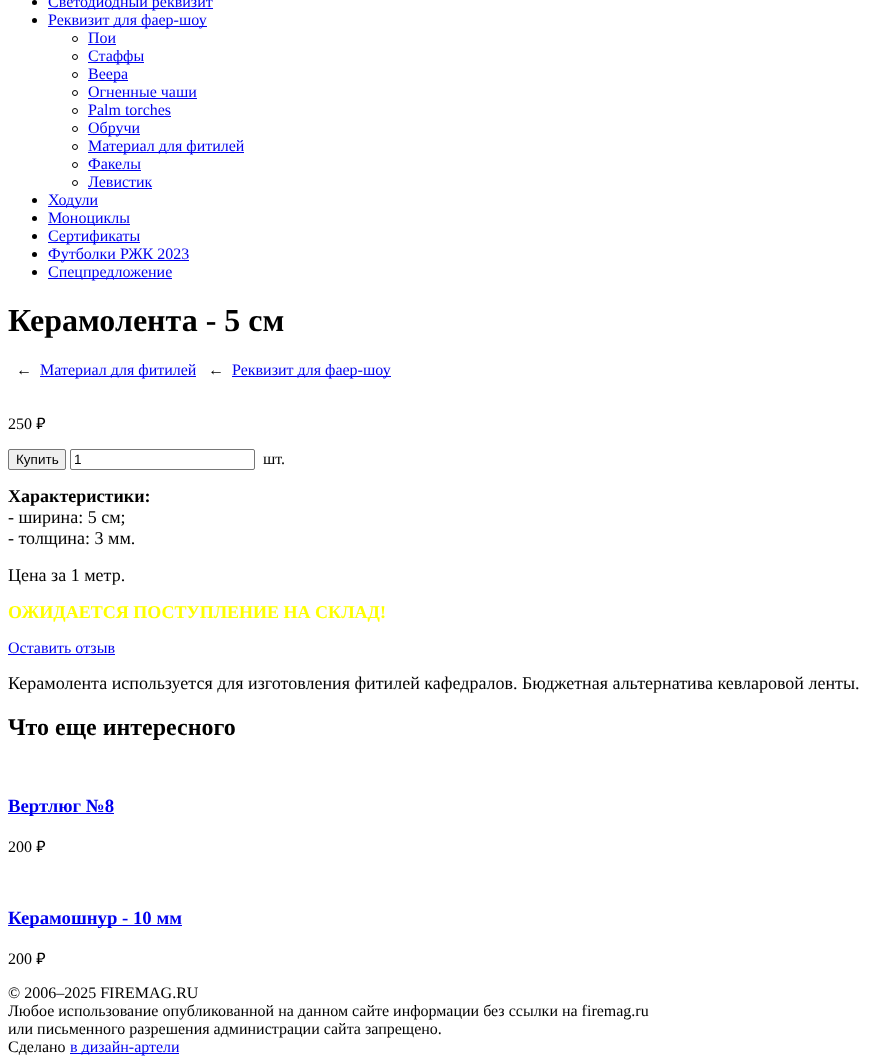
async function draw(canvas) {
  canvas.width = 895
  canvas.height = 1058
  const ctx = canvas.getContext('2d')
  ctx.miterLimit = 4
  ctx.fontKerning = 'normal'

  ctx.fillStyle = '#fff'
  ctx.fillRect(0, 0, 895, 1058)
  ctx.fillStyle = '#000'
  ctx.beginPath()
  ctx.arc(34.5, 2.5, 2.5, 0, 2 * Math.PI)
  ctx.fill()
  ctx.fillStyle = '#00e'
  ctx.fillRect(48, 8, 165, 1)
  ctx.font = '16px Liberation Serif'
  ctx.fillText('Светодиодный реквизит', 48, 7)
  ctx.fillStyle = '#000'
  ctx.beginPath()
  ctx.arc(34.5, 20.5, 2.5, 0, 2 * Math.PI)
  ctx.fill()
  ctx.fillStyle = '#00e'
  ctx.fillRect(48, 26, 159, 1)
  ctx.fillText('Реквизит для фаер-шоу', 48, 25)
  ctx.beginPath()
  ctx.arc(75, 39, 2.5, 0, 2 * Math.PI)
  ctx.strokeStyle = '#000'
  ctx.stroke()
  ctx.fillText('Пои', 88, 43)
  ctx.fillRect(88, 44, 28, 1)
  ctx.beginPath()
  ctx.arc(75, 57, 2.5, 0, 2 * Math.PI)
  ctx.stroke()
  ctx.fillRect(88, 62, 56, 1)
  ctx.fillText('Стаффы', 88, 61)
  ctx.beginPath()
  ctx.arc(75, 75, 2.5, 0, 2 * Math.PI)
  ctx.stroke()
  ctx.fillRect(88, 80, 40, 1)
  ctx.fillText('Веера', 88, 79)
  ctx.beginPath()
  ctx.arc(75, 93, 2.5, 0, 2 * Math.PI)
  ctx.stroke()
  ctx.fillText('Огненные чаши', 88, 97)
  ctx.fillRect(88, 98, 109, 1)
  ctx.beginPath()
  ctx.arc(75, 111, 2.5, 0, 2 * Math.PI)
  ctx.stroke()
  ctx.fillText('Palm torches', 88, 115)
  ctx.fillRect(88, 116, 83, 1)
  ctx.beginPath()
  ctx.arc(75, 129, 2.5, 0, 2 * Math.PI)
  ctx.stroke()
  ctx.fillRect(88, 134, 52, 1)
  ctx.fillText('Обручи', 88, 133)
  ctx.beginPath()
  ctx.arc(75, 147, 2.5, 0, 2 * Math.PI)
  ctx.stroke()
  ctx.fillRect(88, 152, 156, 1)
  ctx.fillText('Материал для фитилей', 88, 151)
  ctx.beginPath()
  ctx.arc(75, 165, 2.5, 0, 2 * Math.PI)
  ctx.stroke()
  ctx.fillText('Факелы', 88, 169)
  ctx.fillRect(88, 170, 53, 1)
  ctx.beginPath()
  ctx.arc(75, 183, 2.5, 0, 2 * Math.PI)
  ctx.stroke()
  ctx.fillText('Левистик', 88, 187)
  ctx.fillRect(88, 188, 64, 1)
  ctx.fillStyle = '#000'
  ctx.beginPath()
  ctx.arc(34.5, 200.5, 2.5, 0, 2 * Math.PI)
  ctx.fill()
  ctx.fillStyle = '#00e'
  ctx.fillRect(48, 206, 50, 1)
  ctx.fillText('Ходули', 48, 205)
  ctx.fillStyle = '#000'
  ctx.beginPath()
  ctx.arc(34.5, 218.5, 2.5, 0, 2 * Math.PI)
  ctx.fill()
  ctx.fillStyle = '#00e'
  ctx.fillRect(48, 224, 82, 1)
  ctx.fillText('Моноциклы', 48, 223)
  ctx.fillStyle = '#000'
  ctx.beginPath()
  ctx.arc(34.5, 236.5, 2.5, 0, 2 * Math.PI)
  ctx.fill()
  ctx.fillStyle = '#00e'
  ctx.fillRect(48, 242, 92, 1)
  ctx.fillText('Сертификаты', 48, 241)
  ctx.fillStyle = '#000'
  ctx.beginPath()
  ctx.arc(34.5, 254.5, 2.5, 0, 2 * Math.PI)
  ctx.fill()
  ctx.fillStyle = '#00e'
  ctx.fillRect(48, 260, 141, 1)
  ctx.fillText('Футболки РЖК 2023', 48, 259)
  ctx.fillStyle = '#000'
  ctx.beginPath()
  ctx.arc(34.5, 272.5, 2.5, 0, 2 * Math.PI)
  ctx.fill()
  ctx.fillStyle = '#00e'
  ctx.fillRect(48, 278, 124, 1)
  ctx.fillText('Спецпредложение', 48, 277)
  ctx.font = 'bold 32px Liberation Serif'
  ctx.fillStyle = '#000'
  ctx.fillText('Керамолента - 5 см', 8, 331)
  ctx.font = '16px Liberation Serif'
  ctx.fillText('←', 16, 375)
  ctx.fillStyle = '#00e'
  ctx.fillRect(40, 376, 156, 1)
  ctx.fillText('Материал для фитилей', 40, 375)
  ctx.fillStyle = '#000'
  ctx.fillText('←', 208, 375)
  ctx.fillStyle = '#00e'
  ctx.fillRect(232, 376, 159, 1)
  ctx.fillText('Реквизит для фаер-шоу', 232, 375)
  ctx.fillStyle = '#000'
  ctx.fillText('250', 8, 429)
  ctx.font = '16px PT Sans Caption'
  ctx.fillText('⃏', 36, 429)
  ctx.fillStyle = '#efefef'
  ctx.beginPath()
  ctx.roundRect(8.5, 449.5, 57, 20, 1.5)
  ctx.fill()
  ctx.strokeStyle = '#767676'
  ctx.stroke()
  ctx.font = '13.5px Liberation Sans'
  ctx.fillStyle = '#000'
  ctx.fillText('Купить', 16, 464)
  ctx.beginPath()
  ctx.roundRect(70.5, 449.5, 184, 20, 1.5)
  ctx.stroke()
  ctx.fillText('1', 74, 464)
  ctx.font = '16px Liberation Serif'
  ctx.fillText('шт.', 263, 464)
  ctx.font = 'bold 18px Liberation Serif'
  ctx.fillText('Характеристики:', 8, 502)
  ctx.font = '18px Liberation Serif'
  ctx.fillText('- ширина: 5 см;', 8, 523)
  ctx.fillText('- толщина: 3 мм.', 8, 544)
  ctx.fillText('Цена за 1 метр.', 8, 581)
  ctx.font = 'bold 18px Liberation Serif'
  ctx.fillStyle = '#ff0'
  ctx.fillText('ОЖИДАЕТСЯ ПОСТУПЛЕНИЕ НА СКЛАД!', 8, 618)
  ctx.font = '16px Liberation Serif'
  ctx.fillStyle = '#00e'
  ctx.fillText('Оставить отзыв', 8, 653)
  ctx.fillRect(8, 654, 107, 1)
  ctx.font = '18px Liberation Serif'
  ctx.fillStyle = '#000'
  ctx.fillText('Керамолента используется для изготовления фитилей кафедралов. Бюджетная альтернатива кевларовой ленты.', 8, 689)
  ctx.font = 'bold 24px Liberation Serif'
  ctx.fillText('Что еще интересного', 8, 735)
  ctx.fillStyle = '#00e'
  ctx.fillRect(8, 813, 106, 1)
  ctx.font = 'bold 18.75px Liberation Serif'
  ctx.fillText('Вертлюг №8', 8, 812)
  ctx.font = '16px Liberation Serif'
  ctx.fillStyle = '#000'
  ctx.fillText('200', 8, 852)
  ctx.font = '16px PT Sans Caption'
  ctx.fillText('⃏', 36, 852)
  ctx.fillStyle = '#00e'
  ctx.fillRect(8, 925, 174, 1)
  ctx.font = 'bold 18.75px Liberation Serif'
  ctx.fillText('Керамошнур - 10 мм', 8, 924)
  ctx.font = '16px Liberation Serif'
  ctx.fillStyle = '#000'
  ctx.fillText('200', 8, 964)
  ctx.font = '16px PT Sans Caption'
  ctx.fillText('⃏', 36, 964)
  ctx.font = '16px Liberation Serif'
  ctx.fillText('© 2006–2025 FIREMAG.RU', 8, 998)
  ctx.fillText('Любое использование опубликованной на данном сайте информации без ссылки на firemag.ru', 8, 1016)
  ctx.fillText('или письменного разрешения администрации сайта запрещено.', 8, 1034)
  ctx.fillText('Сделано', 8, 1052)
  ctx.fillStyle = '#00e'
  ctx.fillRect(70, 1053, 109, 1)
  ctx.fillText('в дизайн-артели', 70, 1052)
}

draw(document.querySelector('canvas'))
